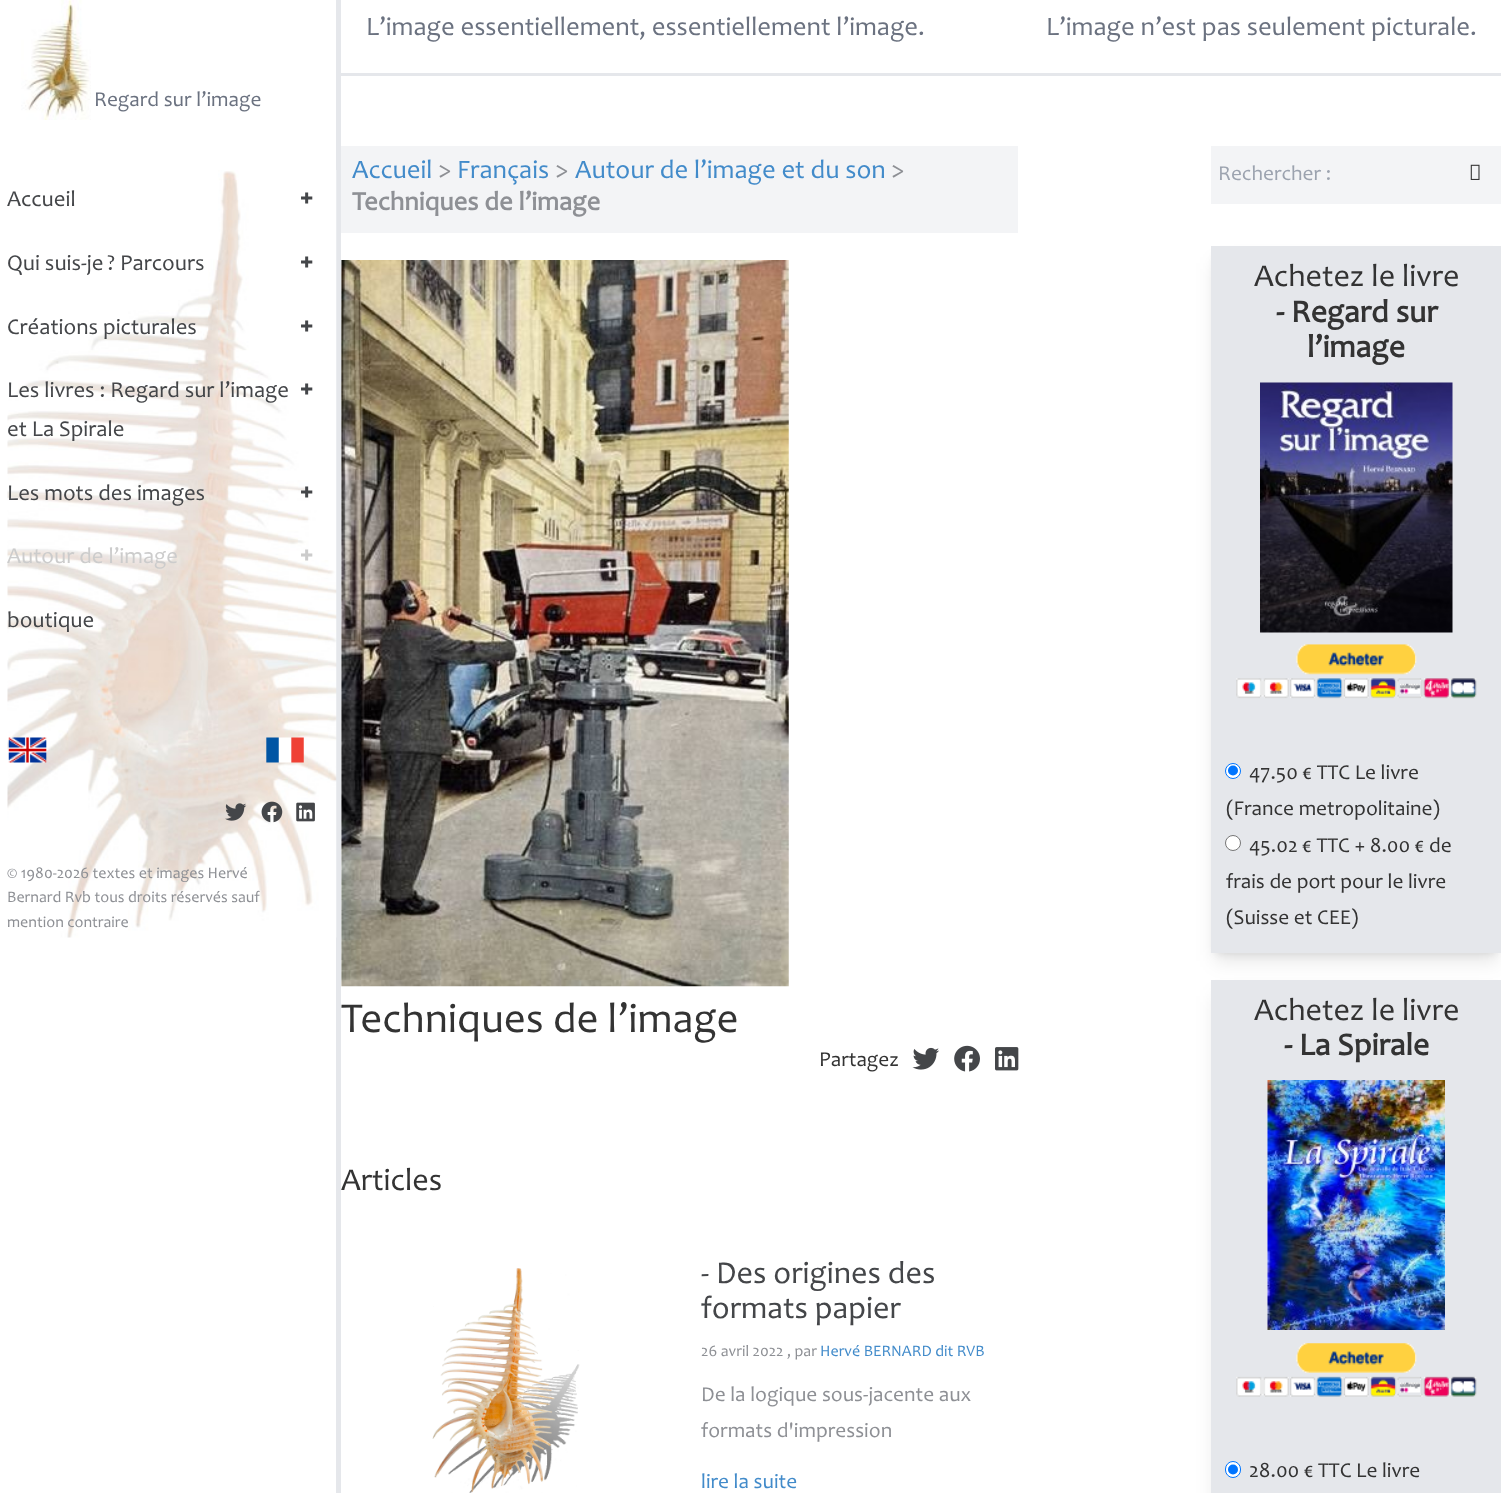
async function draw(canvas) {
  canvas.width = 1501
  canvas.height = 1493
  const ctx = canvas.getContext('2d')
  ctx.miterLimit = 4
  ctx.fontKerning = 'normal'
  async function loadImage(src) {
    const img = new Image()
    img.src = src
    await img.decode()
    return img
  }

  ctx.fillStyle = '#fff'
  ctx.fillRect(0, 0, 1501, 1493)
  ctx.fillStyle = '#e5e7eb'
  ctx.fillRect(336, 0, 5, 1493)
  ctx.drawImage(await loadImage('image0.png'), 21, 0, 70, 120)
  ctx.font = '21.3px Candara'
  ctx.fillStyle = '#6b7280'
  ctx.fillText('Regard sur l’image', 94, 106)
  ctx.drawImage(await loadImage('image1.png'), 7, 170, 330, 768)
  ctx.font = '22.75px Candara'
  ctx.fillStyle = '#444649'
  ctx.fillText('Accueil', 7, 206)
  ctx.font = '900 22.75px Noto Sans'
  ctx.fillText('+', 300, 206)
  ctx.font = '22.75px Candara'
  ctx.fillText('Qui suis-je', 7, 270)
  ctx.fillText('? Parcours', 107, 270)
  ctx.font = '900 22.75px Noto Sans'
  ctx.fillText('+', 300, 270)
  ctx.font = '22.75px Candara'
  ctx.fillText('Créations picturales', 7, 334)
  ctx.font = '900 22.75px Noto Sans'
  ctx.fillText('+', 300, 334)
  ctx.font = '22.75px Candara'
  ctx.fillText('Les livres : Regard sur l’image', 7, 397)
  ctx.fillText('et La Spirale', 7, 436)
  ctx.font = '900 22.75px Noto Sans'
  ctx.fillText('+', 300, 397)
  ctx.font = '22.75px Candara'
  ctx.fillText('Les mots des images', 7, 500)
  ctx.font = '900 22.75px Noto Sans'
  ctx.fillText('+', 300, 500)
  ctx.font = '22.75px Candara'
  ctx.fillStyle = '#ccc'
  ctx.fillText('Autour de l’image', 7, 563)
  ctx.font = '900 22.75px Noto Sans'
  ctx.fillText('+', 300, 563)
  ctx.font = '22.75px Candara'
  ctx.fillStyle = '#444649'
  ctx.fillText('boutique', 7, 627)
  ctx.drawImage(await loadImage('image2.png'), 8, 737, 39, 26)
  ctx.drawImage(await loadImage('image3.png'), 266, 737, 38, 26)
  ctx.drawImage(await loadImage('image4.png'), 225, 803, 22, 18)
  ctx.drawImage(await loadImage('image5.png'), 261, 801, 22, 22)
  ctx.drawImage(await loadImage('image6.png'), 296, 802, 19, 20)
  ctx.font = '16px Candara'
  ctx.fillStyle = '#8e9095'
  ctx.fillText('© 1980-2026 textes et images Hervé', 7, 878)
  ctx.fillText('Bernard Rvb tous droits réservés sauf', 7, 902)
  ctx.fillText('mention contraire', 7, 927)
  ctx.fillStyle = '#e5e7eb'
  ctx.fillRect(341, 73, 1160, 3)
  ctx.font = '26.7px Candara'
  ctx.fillStyle = '#6b7280'
  ctx.fillText('L’image essentiellement, essentiellement l’image.', 366, 35)
  ctx.fillText('L’image n’est pas seulement picturale.', 1046, 35)
  ctx.fillStyle = '#f3f4f6'
  ctx.fillRect(341, 146, 677, 87)
  ctx.fillStyle = '#428bca'
  ctx.fillText('Accueil', 352, 178)
  ctx.fillStyle = '#8e9095'
  ctx.fillText('>', 438, 178)
  ctx.fillStyle = '#428bca'
  ctx.fillText('Français', 457, 178)
  ctx.fillStyle = '#8e9095'
  ctx.fillText('>', 555, 178)
  ctx.fillStyle = '#428bca'
  ctx.fillText('Autour de l’image et du son', 575, 178)
  ctx.fillStyle = '#8e9095'
  ctx.fillText('>', 891, 178)
  ctx.font = 'bold 26.7px Candara'
  ctx.fillText('Techniques de l’image', 352, 210)
  ctx.drawImage(await loadImage('image7.png'), 341, 260, 448, 727)
  ctx.font = '42.75px Candara'
  ctx.fillStyle = '#333'
  ctx.fillText('Techniques de l’image', 341, 1032)
  ctx.font = '21.3px Candara'
  ctx.fillText('Partagez', 819, 1066)
  ctx.drawImage(await loadImage('image8.png'), 912, 1047, 27, 23)
  ctx.drawImage(await loadImage('image9.png'), 954, 1045, 26, 27)
  ctx.drawImage(await loadImage('image10.png'), 995, 1047, 24, 24)
  ctx.font = '32px Candara'
  ctx.fillText('Articles', 341, 1190)
  ctx.drawImage(await loadImage('image11.png'), 432, 1268, 148, 225)
  ctx.fillStyle = '#444649'
  ctx.fillText('- Des origines des', 701, 1283)
  ctx.fillText('formats papier', 701, 1318)
  ctx.font = '16px Candara'
  ctx.fillStyle = '#8e9095'
  ctx.fillText('26 avril 2022 , par', 701, 1356)
  ctx.fillStyle = '#428bca'
  ctx.fillText('Hervé BERNARD dit RVB', 820, 1356)
  ctx.font = '21.3px Candara'
  ctx.fillStyle = '#8e9095'
  ctx.fillText('De la logique sous-jacente aux', 701, 1401)
  ctx.fillText('formats d\'impression', 701, 1437)
  ctx.fillStyle = '#428bca'
  ctx.fillText('lire la suite', 701, 1488)
  ctx.fillStyle = '#f3f4f6'
  ctx.fillRect(1211, 146, 290, 58)
  ctx.fillStyle = '#9ca3af'
  ctx.fillText('Rechercher :', 1218, 180)
  ctx.drawImage(await loadImage('image12.png'), 1470, 164, 10, 16)
  ctx.fillStyle = '#0000001a'
  ctx.filter = 'blur(4px)'
  ctx.beginPath()
  ctx.rect(1216, 256, 280, 697)
  ctx.fill()
  ctx.filter = 'none'
  ctx.filter = 'blur(9.5px)'
  ctx.beginPath()
  ctx.rect(1215, 263, 283, 698)
  ctx.fill()
  ctx.filter = 'none'
  ctx.fillStyle = '#e5e7eb'
  ctx.fillRect(1211, 246, 290, 707)
  ctx.font = '32px Candara'
  ctx.fillStyle = '#333'
  ctx.fillText('Achetez le livre', 1254, 286)
  ctx.font = 'bold 32px Candara'
  ctx.fillText('- Regard sur', 1276, 322)
  ctx.fillText('l’image', 1307, 357)
  ctx.drawImage(await loadImage('image13.png'), 1260, 382, 193, 251)
  ctx.drawImage(await loadImage('image14.png'), 1236, 644, 241, 55)
  ctx.fillStyle = '#fff'
  ctx.beginPath()
  ctx.arc(1233, 771, 7.5, 0, 2 * Math.PI)
  ctx.fill()
  ctx.strokeStyle = '#0075ff'
  ctx.stroke()
  ctx.fillStyle = '#0075ff'
  ctx.beginPath()
  ctx.arc(1233, 770.5, 5, 0, 2 * Math.PI)
  ctx.fill()
  ctx.font = '21.3px Candara'
  ctx.fillStyle = '#333'
  ctx.fillText('47.50 € TTC Le livre', 1249, 779)
  ctx.fillText('(France metropolitaine)', 1226, 815)
  ctx.fillStyle = '#fff'
  ctx.beginPath()
  ctx.arc(1233, 843, 7.5, 0, 2 * Math.PI)
  ctx.fill()
  ctx.strokeStyle = '#767676'
  ctx.stroke()
  ctx.fillStyle = '#333'
  ctx.fillText('45.02 € TTC + 8.00 € de', 1249, 852)
  ctx.fillText('frais de port pour le livre', 1226, 888)
  ctx.fillText('(Suisse et CEE)', 1226, 924)
  ctx.fillStyle = '#0000001a'
  ctx.filter = 'blur(9.5px)'
  ctx.beginPath()
  ctx.rect(1215, 996, 283, 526)
  ctx.fill()
  ctx.filter = 'none'
  ctx.fillStyle = '#e5e7eb'
  ctx.fillRect(1211, 980, 290, 513)
  ctx.font = '32px Candara'
  ctx.fillStyle = '#333'
  ctx.fillText('Achetez le livre', 1254, 1020)
  ctx.font = 'bold 32px Candara'
  ctx.fillText('- La Spirale', 1284, 1055)
  ctx.drawImage(await loadImage('image15.png'), 1267, 1080, 178, 250)
  ctx.drawImage(await loadImage('image16.png'), 1236, 1343, 241, 54)
  ctx.fillStyle = '#fff'
  ctx.beginPath()
  ctx.roundRect(1225.5, 1461.5, 15, 16, 7.5)
  ctx.fill()
  ctx.strokeStyle = '#0075ff'
  ctx.stroke()
  ctx.fillStyle = '#0075ff'
  ctx.beginPath()
  ctx.arc(1233, 1469.5, 5, 0, 2 * Math.PI)
  ctx.fill()
  ctx.font = '21.3px Candara'
  ctx.fillStyle = '#333'
  ctx.fillText('28.00 € TTC Le livre', 1249, 1477)
}

draw(document.querySelector('canvas'))
